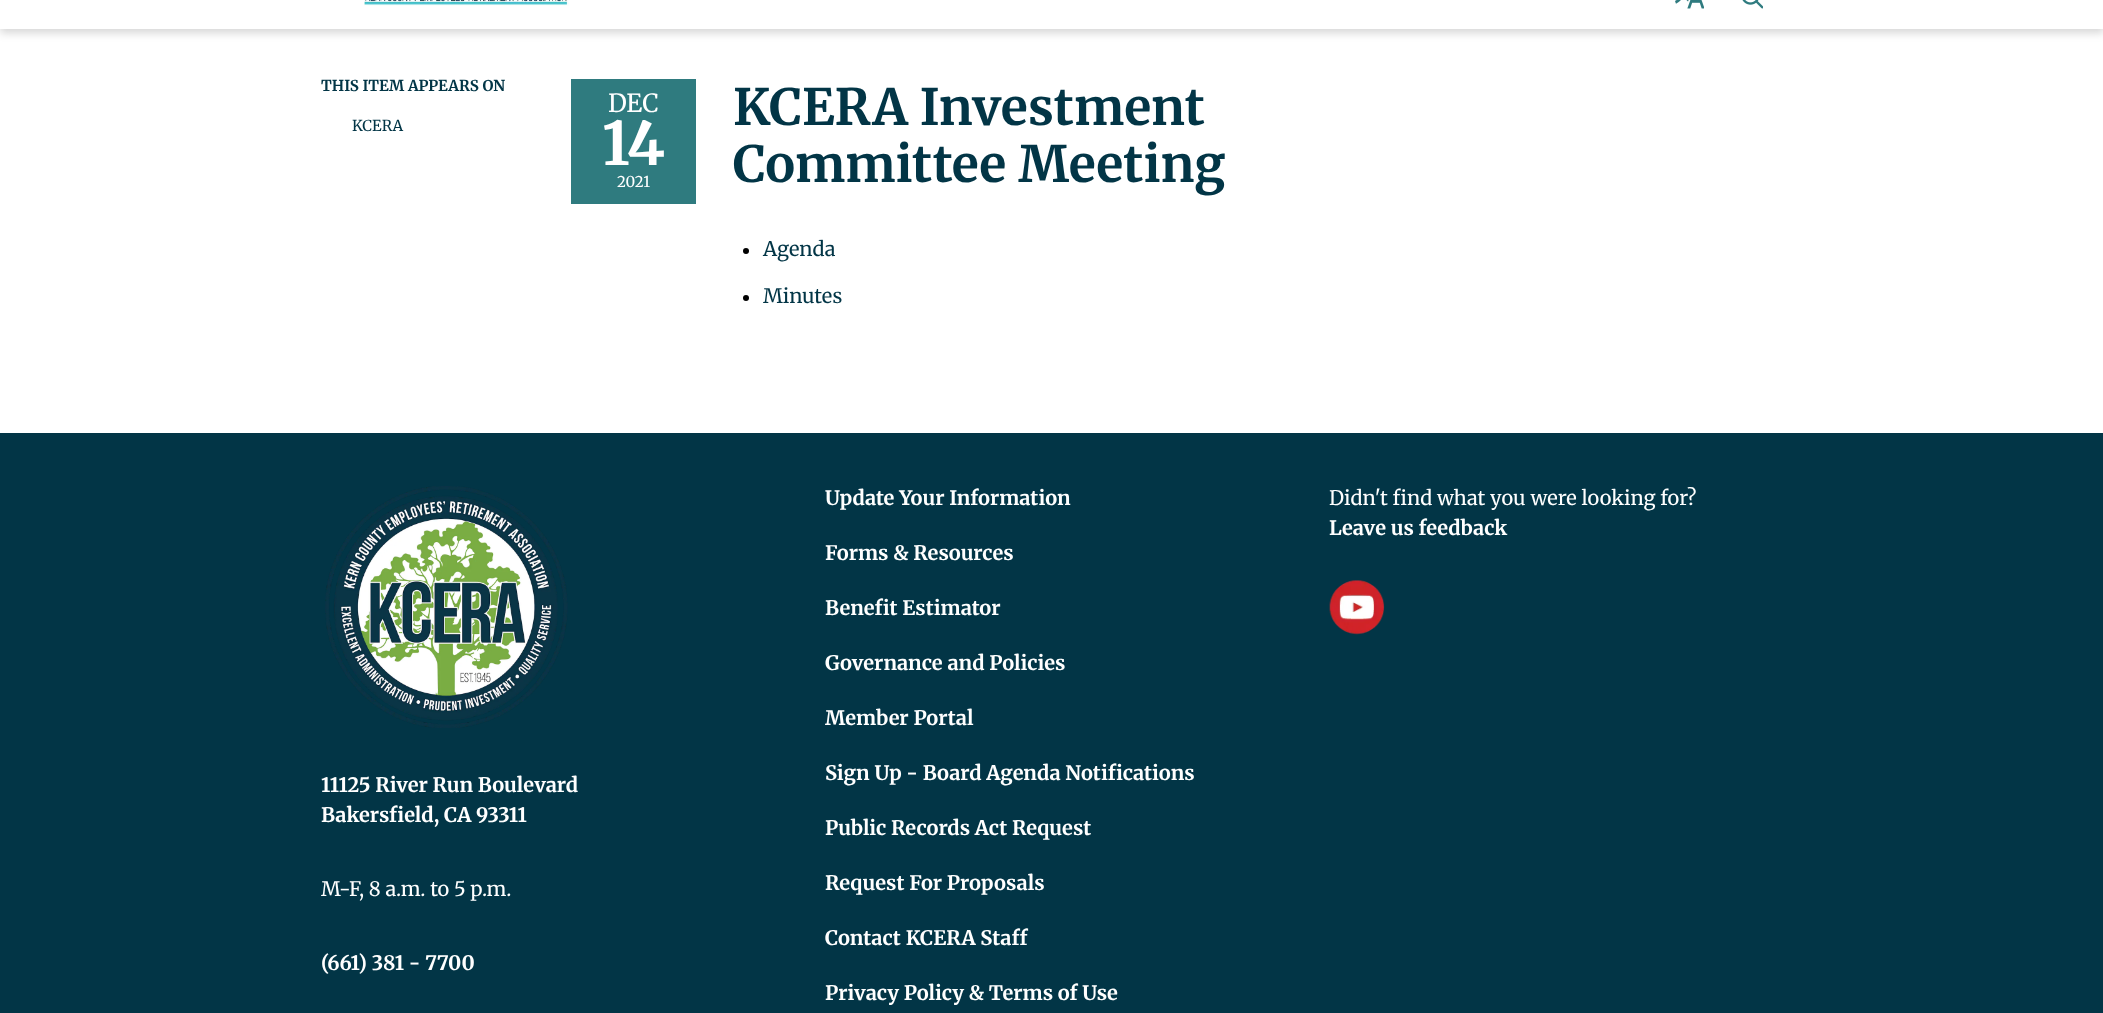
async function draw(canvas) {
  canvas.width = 2103
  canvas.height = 1013
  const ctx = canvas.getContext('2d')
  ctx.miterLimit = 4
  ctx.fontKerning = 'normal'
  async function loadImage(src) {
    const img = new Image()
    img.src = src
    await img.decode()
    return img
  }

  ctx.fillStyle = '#023546'
  ctx.fillRect(0, 0, 2103, 1013)
  ctx.fillStyle = '#fff'
  ctx.fillRect(0, 29, 2103, 404)
  ctx.fillStyle = '#00000029'
  ctx.filter = 'blur(4px)'
  ctx.beginPath()
  ctx.rect(0, -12, 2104, 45)
  ctx.fill()
  ctx.filter = 'none'
  ctx.fillStyle = '#fff'
  ctx.fillRect(0, 0, 2103, 29)
  ctx.drawImage(await loadImage('image0.png'), 364, 0, 205, 6)
  ctx.drawImage(await loadImage('image1.png'), 1675, 0, 29, 9)
  ctx.drawImage(await loadImage('image2.png'), 1742, 0, 21, 9)
  ctx.font = 'bold 15px Merriweather'
  ctx.fillStyle = '#023546'
  ctx.fillText('THIS ITEM APPEARS ON', 321, 91)
  ctx.font = '15px Merriweather'
  ctx.fillText('KCERA', 352, 131)
  ctx.fillStyle = '#2f7b7f'
  ctx.fillRect(571, 79, 125, 125)
  ctx.font = '25px Merriweather'
  ctx.fillStyle = '#fff'
  ctx.fillText('DEC', 608, 112)
  ctx.font = 'bold 60px Merriweather'
  ctx.fillText('14', 602, 165)
  ctx.font = '15px Merriweather'
  ctx.fillText('2021', 617, 187)
  ctx.font = 'bold 50px Merriweather'
  ctx.fillStyle = '#023546'
  ctx.fillText('KCERA Investment', 733, 125)
  ctx.fillText('Committee Meeting', 733, 182)
  ctx.fillStyle = '#000'
  ctx.beginPath()
  ctx.arc(746, 251, 3, 0, 2 * Math.PI)
  ctx.fill()
  ctx.font = '20px Merriweather'
  ctx.fillStyle = '#023546'
  ctx.fillText('Agenda', 763, 256)
  ctx.fillStyle = '#000'
  ctx.beginPath()
  ctx.arc(746, 298, 3, 0, 2 * Math.PI)
  ctx.fill()
  ctx.fillStyle = '#023546'
  ctx.fillText('Minutes', 763, 303)
  ctx.drawImage(await loadImage('image3.png'), 325, 486, 243, 242)
  ctx.font = 'bold 20px Merriweather'
  ctx.fillStyle = '#fff'
  ctx.fillText('11125 River Run Boulevard', 321, 792)
  ctx.fillText('Bakersfield, CA 93311', 321, 822)
  ctx.font = '20px Merriweather'
  ctx.fillText('M-F, 8 a.m. to 5 p.m.', 321, 896)
  ctx.font = 'bold 20px Merriweather'
  ctx.fillText('(661) 381 - 7700', 321, 970)
  ctx.fillText('Update Your Information', 825, 505)
  ctx.fillText('Forms & Resources', 825, 560)
  ctx.fillText('Benefit Estimator', 825, 615)
  ctx.fillText('Governance and Policies', 825, 670)
  ctx.fillText('Member Portal', 825, 725)
  ctx.fillText('Sign Up - Board Agenda Notifications', 825, 780)
  ctx.fillText('Public Records Act Request', 825, 835)
  ctx.fillText('Request For Proposals', 825, 890)
  ctx.fillText('Contact KCERA Staff', 825, 945)
  ctx.fillText('Privacy Policy & Terms of Use', 825, 1000)
  ctx.font = '20px Merriweather'
  ctx.fillText('Didn\'t find what you were looking for?', 1329, 505)
  ctx.font = 'bold 20px Merriweather'
  ctx.fillText('Leave us feedback', 1329, 535)
  ctx.drawImage(await loadImage('image4.png'), 1329, 580, 56, 55)
}

draw(document.querySelector('canvas'))
